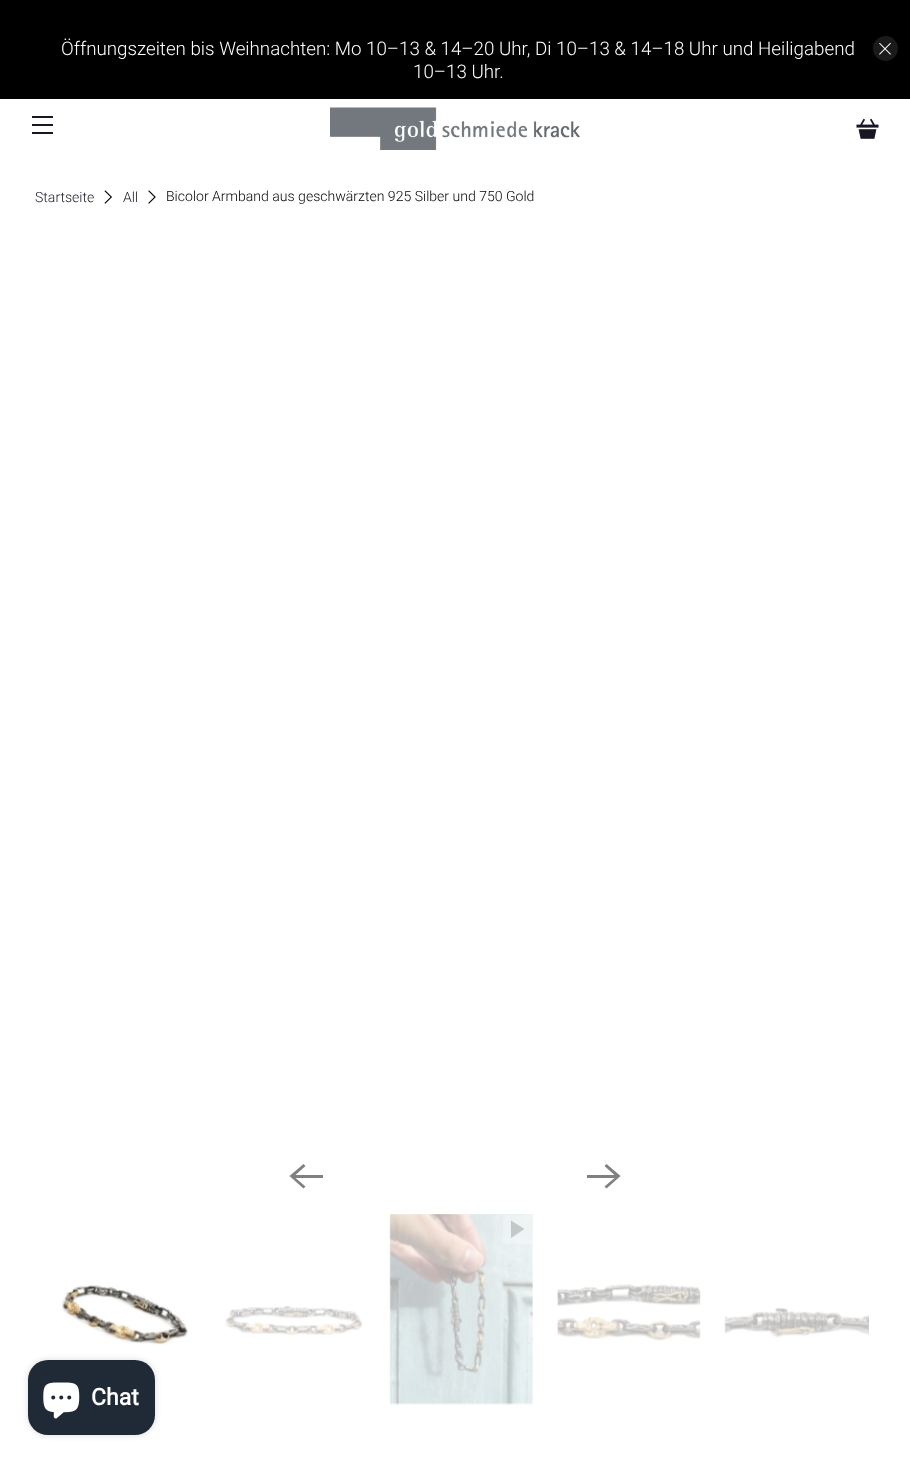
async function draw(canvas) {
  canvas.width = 910
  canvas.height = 1461
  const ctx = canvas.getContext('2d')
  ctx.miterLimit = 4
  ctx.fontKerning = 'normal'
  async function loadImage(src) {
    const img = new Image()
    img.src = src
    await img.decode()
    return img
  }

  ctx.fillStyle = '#fff'
  ctx.fillRect(0, 0, 910, 1461)
  ctx.fillStyle = '#000'
  ctx.fillRect(0, 0, 910, 99)
  ctx.font = '300 18.75px Roboto'
  ctx.fillStyle = '#fff'
  ctx.fillText('Öffnungszeiten bis Weihnachten: Mo 10–13 & 14–20 Uhr, Di 10–13 & 14–18 Uhr und Heiligabend', 61, 55)
  ctx.fillText('10–13 Uhr.', 413, 78)
  ctx.fillStyle = '#1a1a1a'
  ctx.beginPath()
  ctx.arc(885.5, 48.5, 12.5, 0, 2 * Math.PI)
  ctx.fill()
  ctx.drawImage(await loadImage('image0.png'), 879, 43, 12, 12)
  ctx.fillStyle = '#181624'
  ctx.fillRect(32, 116, 21, 2)
  ctx.fillRect(32, 124, 21, 2)
  ctx.fillRect(32, 132, 21, 2)
  ctx.drawImage(await loadImage('image1.png'), 330, 107, 250, 43)
  ctx.drawImage(await loadImage('image2.png'), 856, 118, 23, 21)
  ctx.font = '300 14.05px Roboto'
  ctx.fillText('Startseite', 35, 202)
  ctx.drawImage(await loadImage('image3.png'), 104, 190, 8, 14)
  ctx.fillText('All', 123, 202)
  ctx.drawImage(await loadImage('image4.png'), 148, 190, 8, 14)
  ctx.fillStyle = '#000'
  ctx.fillText('Bicolor Armband aus geschwärzten 925 Silber und 750 Gold', 166, 201)
  ctx.fillStyle = '#808080'
  ctx.beginPath()
  ctx.moveTo(323, 1175)
  ctx.lineTo(295.5, 1175)
  ctx.lineTo(305.5, 1166)
  ctx.lineTo(303.5, 1164)
  ctx.lineTo(289.5, 1176)
  ctx.lineTo(303.5, 1188.5)
  ctx.lineTo(305.5, 1186.5)
  ctx.lineTo(295.5, 1178)
  ctx.lineTo(323, 1178)
  ctx.closePath()
  ctx.fill()
  ctx.beginPath()
  ctx.moveTo(587, 1178)
  ctx.lineTo(614.5, 1178)
  ctx.lineTo(604.5, 1186.5)
  ctx.lineTo(606.5, 1188.5)
  ctx.lineTo(620.5, 1176)
  ctx.lineTo(606.5, 1164)
  ctx.lineTo(604.5, 1166)
  ctx.lineTo(614.5, 1175)
  ctx.lineTo(587, 1175)
  ctx.closePath()
  ctx.fill()
  ctx.drawImage(await loadImage('image5.png'), 61, 1285, 127, 60)
  ctx.drawImage(await loadImage('image6.png'), 225, 1305, 138, 30)
  ctx.drawImage(await loadImage('image7.png'), 389, 1214, 144, 191)
  ctx.fillStyle = '#ffffff4d'
  ctx.fillRect(503, 1215, 29, 29)
  ctx.fillStyle = '#0000002e'
  ctx.beginPath()
  ctx.moveTo(511, 1220.5)
  ctx.lineTo(511, 1238)
  ctx.lineTo(524.5, 1229)
  ctx.closePath()
  ctx.fill('evenodd')
  ctx.drawImage(await loadImage('image8.png'), 557, 1284, 144, 57)
  ctx.drawImage(await loadImage('image9.png'), 724, 1307, 145, 31)
  ctx.fillStyle = '#00000026'
  ctx.filter = 'blur(3px)'
  ctx.beginPath()
  ctx.roundRect(28, 1360, 127, 75, 20)
  ctx.fill()
  ctx.filter = 'none'
  ctx.fillStyle = '#202a36'
  ctx.beginPath()
  ctx.roundRect(28, 1360, 127, 75, 20)
  ctx.fill()
  ctx.drawImage(await loadImage('image10.png'), 43, 1382, 37, 37)
  ctx.font = 'bold 23px Roboto'
  ctx.fillStyle = '#fff'
  ctx.fillText('Chat', 91, 1405)
}

draw(document.querySelector('canvas'))
